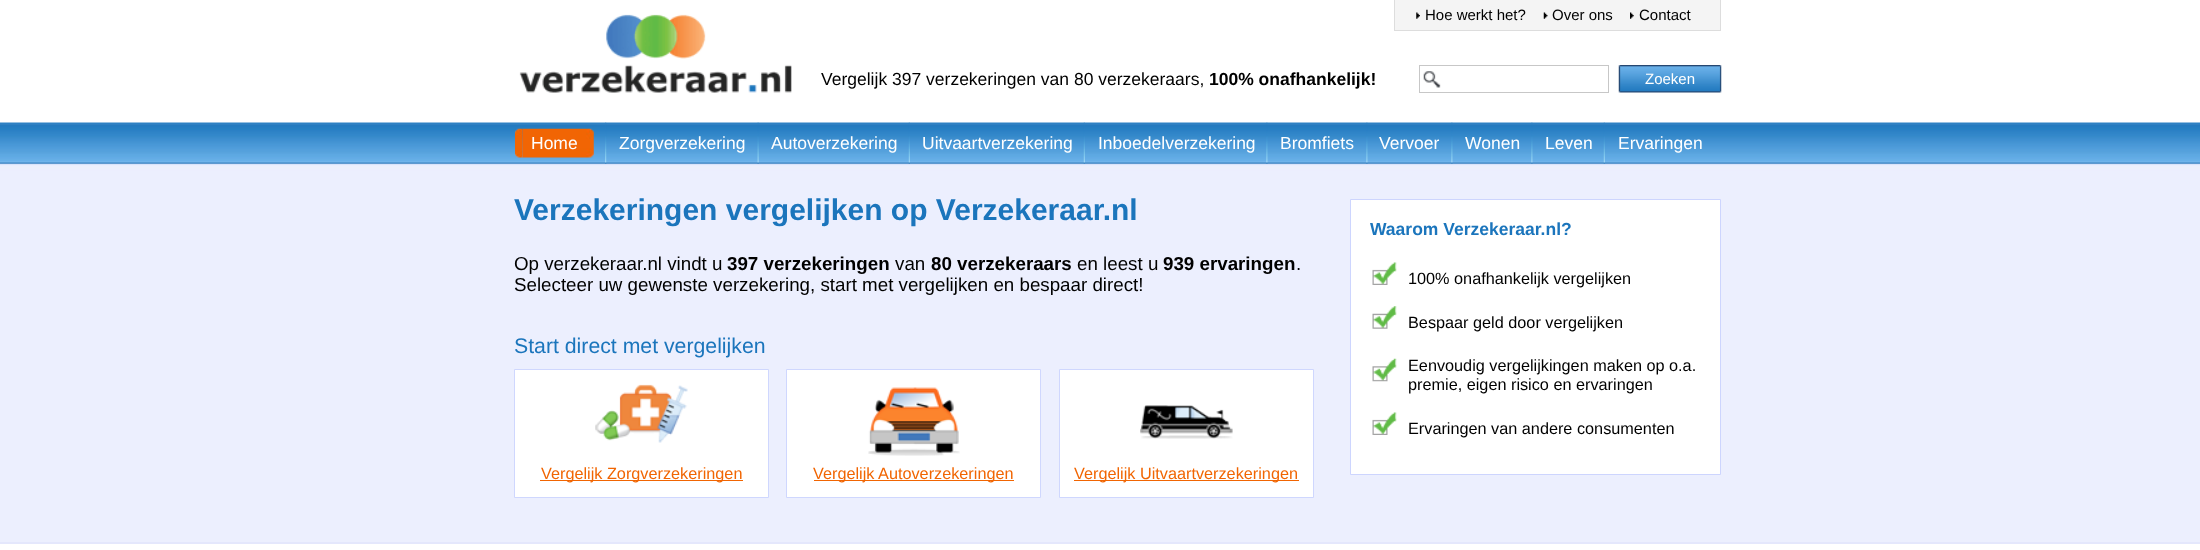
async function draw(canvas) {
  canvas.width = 2200
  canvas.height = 550
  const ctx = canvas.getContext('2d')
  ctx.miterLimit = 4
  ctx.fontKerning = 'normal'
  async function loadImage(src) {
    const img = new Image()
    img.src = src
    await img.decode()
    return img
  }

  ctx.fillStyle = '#fff'
  ctx.fillRect(0, 0, 2200, 550)
  ctx.drawImage(await loadImage('image0.png'), 0, 122, 2200, 422)
  ctx.fillStyle = '#f4f4f4'
  ctx.fillRect(1395, 0, 325, 30)
  ctx.fillStyle = '#ddd'
  ctx.fillRect(1720, 0, 1, 31)
  ctx.fillRect(1394, 30, 327, 1)
  ctx.fillRect(1394, 0, 1, 31)
  ctx.drawImage(await loadImage('image1.png'), 1416, 12, 4, 7)
  ctx.font = '15px Liberation Sans'
  ctx.fillStyle = '#000'
  ctx.fillText('Hoe werkt het?', 1425, 20)
  ctx.drawImage(await loadImage('image2.png'), 1543, 12, 5, 7)
  ctx.fillText('Over ons', 1552, 20)
  ctx.drawImage(await loadImage('image3.png'), 1630, 12, 4, 7)
  ctx.fillText('Contact', 1639, 20)
  ctx.drawImage(await loadImage('image4.png'), 519, 14, 273, 79)
  ctx.font = '17.5px Liberation Sans'
  ctx.fillText('Vergelijk 397 verzekeringen van 80 verzekeraars,', 821, 85)
  ctx.font = 'bold 17.5px Liberation Sans'
  ctx.fillText('100% onafhankelijk!', 1209, 85)
  ctx.drawImage(await loadImage('image5.png'), 1423, 71, 18, 17)
  ctx.strokeStyle = '#c7c7c7'
  ctx.strokeRect(1419.5, 65.5, 189, 27)
  ctx.drawImage(await loadImage('image6.png'), 1618, 65, 104, 28)
  ctx.font = '15px Liberation Sans'
  ctx.fillStyle = '#fff'
  ctx.fillText('Zoeken', 1645, 84)
  ctx.drawImage(await loadImage('image7.png'), 605, 122, 2, 42)
  ctx.drawImage(await loadImage('image8.png'), 515, 128, 8, 30)
  ctx.drawImage(await loadImage('image9.png'), 522, 128, 72, 30)
  ctx.font = '17.5px Liberation Sans'
  ctx.fillText('Home', 531, 149)
  ctx.drawImage(await loadImage('image10.png'), 757, 122, 2, 42)
  ctx.fillText('Zorgverzekering', 619, 149)
  ctx.drawImage(await loadImage('image11.png'), 908, 122, 2, 42)
  ctx.fillText('Autoverzekering', 771, 149)
  ctx.drawImage(await loadImage('image11.png'), 1083, 122, 2, 42)
  ctx.fillText('Uitvaartverzekering', 922, 149)
  ctx.drawImage(await loadImage('image12.png'), 1266, 122, 2, 42)
  ctx.fillText('Inboedelverzekering', 1098, 149)
  ctx.drawImage(await loadImage('image12.png'), 1366, 122, 2, 42)
  ctx.fillText('Bromfiets', 1280, 149)
  ctx.drawImage(await loadImage('image12.png'), 1451, 122, 2, 42)
  ctx.fillText('Vervoer', 1379, 149)
  ctx.drawImage(await loadImage('image12.png'), 1531, 122, 2, 42)
  ctx.fillText('Wonen', 1465, 149)
  ctx.drawImage(await loadImage('image11.png'), 1603, 122, 2, 42)
  ctx.fillText('Leven', 1545, 149)
  ctx.fillText('Ervaringen', 1618, 149)
  ctx.font = 'bold 30px Liberation Sans'
  ctx.fillStyle = '#1b75bc'
  ctx.fillText('Verzekeringen vergelijken op Verzekeraar.nl', 514, 220)
  ctx.font = '18.75px Liberation Sans'
  ctx.fillStyle = '#000'
  ctx.fillText('Op verzekeraar.nl vindt u', 514, 270)
  ctx.font = 'bold 18.75px Liberation Sans'
  ctx.fillText('397 verzekeringen', 727, 270)
  ctx.font = '18.75px Liberation Sans'
  ctx.fillText('van', 895, 270)
  ctx.font = 'bold 18.75px Liberation Sans'
  ctx.fillText('80 verzekeraars', 931, 270)
  ctx.font = '18.75px Liberation Sans'
  ctx.fillText('en leest u', 1077, 270)
  ctx.font = 'bold 18.75px Liberation Sans'
  ctx.fillText('939 ervaringen', 1163, 270)
  ctx.font = '18.75px Liberation Sans'
  ctx.fillText('.', 1296, 270)
  ctx.fillText('Selecteer uw gewenste verzekering, start met vergelijken en bespaar direct!', 514, 291)
  ctx.font = '21.25px Liberation Sans'
  ctx.fillStyle = '#1b75bc'
  ctx.fillText('Start direct met vergelijken', 514, 353)
  ctx.fillStyle = '#fff'
  ctx.beginPath()
  ctx.rect(514.5, 369.5, 254, 128)
  ctx.fill()
  ctx.strokeStyle = '#cfd7fe'
  ctx.stroke()
  ctx.drawImage(await loadImage('image13.png'), 595, 384, 93, 59)
  ctx.fillStyle = '#f16502'
  ctx.fillRect(540, 480, 203, 1)
  ctx.font = '16.25px Liberation Sans'
  ctx.fillText('Vergelijk Zorgverzekeringen', 541, 479)
  ctx.fillStyle = '#fff'
  ctx.beginPath()
  ctx.rect(786.5, 369.5, 254, 128)
  ctx.fill()
  ctx.stroke()
  ctx.drawImage(await loadImage('image14.png'), 868, 387, 92, 69)
  ctx.fillStyle = '#f16502'
  ctx.fillRect(814, 480, 200, 1)
  ctx.fillText('Vergelijk Autoverzekeringen', 813, 479)
  ctx.fillStyle = '#fff'
  ctx.beginPath()
  ctx.rect(1059.5, 369.5, 254, 128)
  ctx.fill()
  ctx.stroke()
  ctx.drawImage(await loadImage('image15.png'), 1140, 405, 93, 34)
  ctx.fillStyle = '#f16502'
  ctx.fillRect(1074, 480, 225, 1)
  ctx.fillText('Vergelijk Uitvaartverzekeringen', 1074, 479)
  ctx.fillStyle = '#fff'
  ctx.beginPath()
  ctx.rect(1350.5, 199.5, 370, 275)
  ctx.fill()
  ctx.strokeStyle = '#cdd5fe'
  ctx.stroke()
  ctx.font = 'bold 17.5px Liberation Sans'
  ctx.fillStyle = '#1b75bc'
  ctx.fillText('Waarom Verzekeraar.nl?', 1370, 235)
  ctx.drawImage(await loadImage('image16.png'), 1372, 262, 25, 23)
  ctx.font = '16.25px Liberation Sans'
  ctx.fillStyle = '#000'
  ctx.fillText('100% onafhankelijk vergelijken', 1408, 284)
  ctx.drawImage(await loadImage('image17.png'), 1372, 306, 25, 23)
  ctx.fillText('Bespaar geld door vergelijken', 1408, 328)
  ctx.drawImage(await loadImage('image18.png'), 1372, 358, 25, 24)
  ctx.fillText('Eenvoudig vergelijkingen maken op o.a.', 1408, 371)
  ctx.fillText('premie, eigen risico en ervaringen', 1408, 390)
  ctx.drawImage(await loadImage('image16.png'), 1372, 412, 25, 23)
  ctx.fillText('Ervaringen van andere consumenten', 1408, 434)
}

draw(document.querySelector('canvas'))
